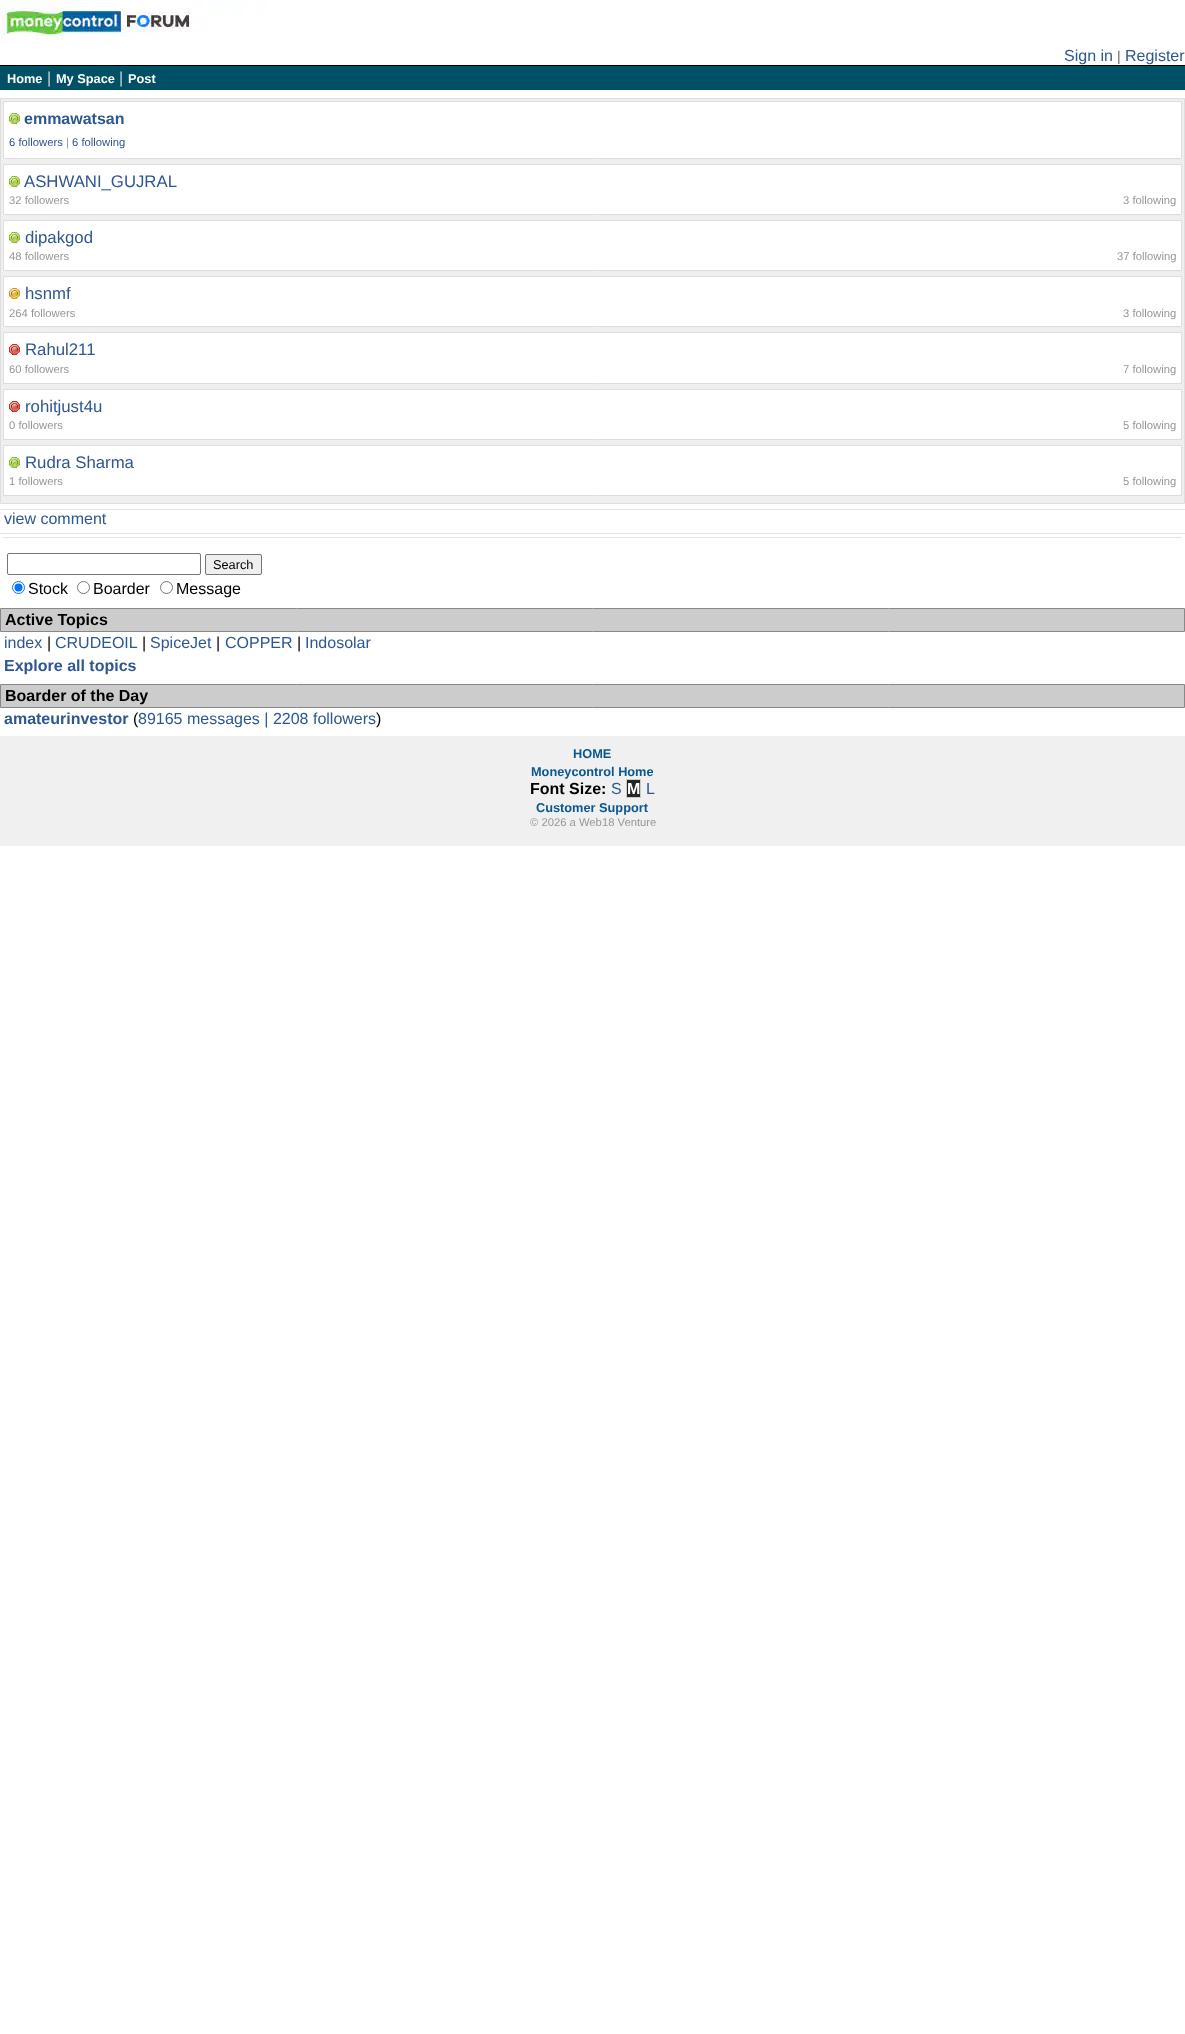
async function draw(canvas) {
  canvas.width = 1185
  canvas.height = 2034
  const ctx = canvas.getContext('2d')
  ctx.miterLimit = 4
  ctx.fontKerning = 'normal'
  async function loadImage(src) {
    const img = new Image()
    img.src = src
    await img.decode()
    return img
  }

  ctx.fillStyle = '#fff'
  ctx.fillRect(0, 0, 1185, 2034)
  ctx.drawImage(await loadImage('image0.png'), 0, 0, 268, 43)
  ctx.font = '16px Liberation Sans'
  ctx.fillStyle = '#2d5791'
  ctx.fillText('Sign in', 1064, 61)
  ctx.font = '14px Liberation Sans'
  ctx.fillStyle = '#666'
  ctx.fillText('|', 1117, 61)
  ctx.font = '16px Liberation Sans'
  ctx.fillStyle = '#2d5791'
  ctx.fillText('Register', 1125, 61)
  ctx.fillStyle = '#000'
  ctx.fillRect(0, 65, 1185, 1)
  ctx.fillStyle = '#005066'
  ctx.fillRect(0, 66, 1185, 24)
  ctx.font = 'bold 12.75px Liberation Sans'
  ctx.fillStyle = '#fff'
  ctx.fillText('Home', 7, 83)
  ctx.font = '16px Liberation Sans'
  ctx.fillStyle = '#d0d0d0'
  ctx.fillText('|', 47, 83)
  ctx.font = 'bold 12.75px Liberation Sans'
  ctx.fillStyle = '#fff'
  ctx.fillText('My Space', 56, 83)
  ctx.font = '16px Liberation Sans'
  ctx.fillStyle = '#d0d0d0'
  ctx.fillText('|', 119, 83)
  ctx.font = 'bold 12.75px Liberation Sans'
  ctx.fillStyle = '#fff'
  ctx.fillText('Post', 128, 83)
  ctx.fillStyle = '#efefef'
  ctx.beginPath()
  ctx.rect(0.5, 98.5, 1184, 405)
  ctx.fill()
  ctx.strokeStyle = '#dedede'
  ctx.stroke()
  ctx.fillStyle = '#fff'
  ctx.beginPath()
  ctx.rect(3.5, 101.5, 1178, 57)
  ctx.fill()
  ctx.stroke()
  ctx.drawImage(await loadImage('image1.png'), 9, 113, 11, 11)
  ctx.font = 'bold 16px Liberation Sans'
  ctx.fillStyle = '#2d5791'
  ctx.fillText('emmawatsan', 24, 124)
  ctx.font = '11.25px Liberation Sans'
  ctx.fillText('6 followers', 9, 146)
  ctx.fillStyle = '#979797'
  ctx.fillText('|', 66, 146)
  ctx.fillStyle = '#2d5791'
  ctx.fillText('6 following', 72, 146)
  ctx.fillStyle = '#fff'
  ctx.beginPath()
  ctx.rect(3.5, 164.5, 1178, 50)
  ctx.fill()
  ctx.stroke()
  ctx.drawImage(await loadImage('image1.png'), 9, 176, 11, 11)
  ctx.font = '16.75px Liberation Sans'
  ctx.fillStyle = '#2d5791'
  ctx.fillText('ASHWANI_GUJRAL', 24, 187)
  ctx.font = '11.25px Liberation Sans'
  ctx.fillStyle = '#979797'
  ctx.fillText('32 followers', 9, 204)
  ctx.fillText('3 following', 1123, 204)
  ctx.fillStyle = '#fff'
  ctx.beginPath()
  ctx.rect(3.5, 220.5, 1178, 50)
  ctx.fill()
  ctx.stroke()
  ctx.drawImage(await loadImage('image1.png'), 9, 232, 11, 11)
  ctx.font = '16.75px Liberation Sans'
  ctx.fillStyle = '#2d5791'
  ctx.fillText('dipakgod', 25, 243)
  ctx.font = '11.25px Liberation Sans'
  ctx.fillStyle = '#979797'
  ctx.fillText('48 followers', 9, 260)
  ctx.fillText('37 following', 1117, 260)
  ctx.fillStyle = '#fff'
  ctx.beginPath()
  ctx.rect(3.5, 276.5, 1178, 50)
  ctx.fill()
  ctx.stroke()
  ctx.drawImage(await loadImage('image2.png'), 9, 288, 11, 11)
  ctx.font = '16.75px Liberation Sans'
  ctx.fillStyle = '#2d5791'
  ctx.fillText('hsnmf', 25, 299)
  ctx.font = '11.25px Liberation Sans'
  ctx.fillStyle = '#979797'
  ctx.fillText('264 followers', 9, 317)
  ctx.fillText('3 following', 1123, 317)
  ctx.fillStyle = '#fff'
  ctx.beginPath()
  ctx.rect(3.5, 332.5, 1178, 51)
  ctx.fill()
  ctx.stroke()
  ctx.drawImage(await loadImage('image3.png'), 9, 344, 11, 11)
  ctx.font = '16.75px Liberation Sans'
  ctx.fillStyle = '#2d5791'
  ctx.fillText('Rahul211', 25, 355)
  ctx.font = '11.25px Liberation Sans'
  ctx.fillStyle = '#979797'
  ctx.fillText('60 followers', 9, 373)
  ctx.fillText('7 following', 1123, 373)
  ctx.fillStyle = '#fff'
  ctx.beginPath()
  ctx.rect(3.5, 389.5, 1178, 50)
  ctx.fill()
  ctx.stroke()
  ctx.drawImage(await loadImage('image3.png'), 9, 401, 11, 11)
  ctx.font = '16.75px Liberation Sans'
  ctx.fillStyle = '#2d5791'
  ctx.fillText('rohitjust4u', 25, 412)
  ctx.font = '11.25px Liberation Sans'
  ctx.fillStyle = '#979797'
  ctx.fillText('0 followers', 9, 429)
  ctx.fillText('5 following', 1123, 429)
  ctx.fillStyle = '#fff'
  ctx.beginPath()
  ctx.rect(3.5, 445.5, 1178, 50)
  ctx.fill()
  ctx.stroke()
  ctx.drawImage(await loadImage('image1.png'), 9, 457, 11, 11)
  ctx.font = '16.75px Liberation Sans'
  ctx.fillStyle = '#2d5791'
  ctx.fillText('Rudra Sharma', 25, 468)
  ctx.font = '11.25px Liberation Sans'
  ctx.fillStyle = '#979797'
  ctx.fillText('1 followers', 9, 485)
  ctx.fillText('5 following', 1123, 485)
  ctx.fillStyle = '#e3e3e3'
  ctx.fillRect(0, 509, 1185, 1)
  ctx.font = '16px Liberation Sans'
  ctx.fillStyle = '#2d5791'
  ctx.fillText('view comment', 4, 524)
  ctx.fillStyle = '#e3e3e3'
  ctx.fillRect(0, 533, 1185, 1)
  ctx.fillRect(3, 537, 1179, 1)
  ctx.beginPath()
  ctx.roundRect(7.5, 553.5, 193, 21, 1.5)
  ctx.strokeStyle = '#767676'
  ctx.stroke()
  ctx.fillStyle = '#efefef'
  ctx.beginPath()
  ctx.roundRect(205.5, 554.5, 56, 20, 1.5)
  ctx.fill()
  ctx.stroke()
  ctx.font = '12.75px Liberation Sans'
  ctx.fillStyle = '#000'
  ctx.fillText('Search', 213, 569)
  ctx.beginPath()
  ctx.arc(18.5, 587.5, 6, 0, 2 * Math.PI)
  ctx.strokeStyle = '#0075ff'
  ctx.stroke()
  ctx.fillStyle = '#0075ff'
  ctx.beginPath()
  ctx.arc(18.5, 587.5, 4, 0, 2 * Math.PI)
  ctx.fill()
  ctx.font = '16px Liberation Sans'
  ctx.fillStyle = '#000'
  ctx.fillText('Stock', 28, 594)
  ctx.beginPath()
  ctx.arc(83.5, 587.5, 6, 0, 2 * Math.PI)
  ctx.strokeStyle = '#767676'
  ctx.stroke()
  ctx.fillText('Boarder', 93, 594)
  ctx.beginPath()
  ctx.arc(166.5, 587.5, 6, 0, 2 * Math.PI)
  ctx.stroke()
  ctx.fillText('Message', 176, 594)
  ctx.fillStyle = '#ccc'
  ctx.beginPath()
  ctx.rect(0.5, 608.5, 1184, 23)
  ctx.fill()
  ctx.strokeStyle = '#888'
  ctx.stroke()
  ctx.font = 'bold 16px Liberation Sans'
  ctx.fillStyle = '#000'
  ctx.fillText('Active Topics', 5, 625)
  ctx.font = '16px Liberation Sans'
  ctx.fillStyle = '#2d5791'
  ctx.fillText('index', 4, 648)
  ctx.fillStyle = '#000'
  ctx.fillText('|', 47, 648)
  ctx.fillStyle = '#2d5791'
  ctx.fillText('CRUDEOIL', 55, 648)
  ctx.fillStyle = '#000'
  ctx.fillText('|', 142, 648)
  ctx.fillStyle = '#2d5791'
  ctx.fillText('SpiceJet', 150, 648)
  ctx.fillStyle = '#000'
  ctx.fillText('|', 216, 648)
  ctx.fillStyle = '#2d5791'
  ctx.fillText('COPPER', 225, 648)
  ctx.fillStyle = '#000'
  ctx.fillText('|', 297, 648)
  ctx.fillStyle = '#2d5791'
  ctx.fillText('Indosolar', 305, 648)
  ctx.font = 'bold 16px Liberation Sans'
  ctx.fillText('Explore all topics', 4, 671)
  ctx.fillStyle = '#ccc'
  ctx.beginPath()
  ctx.rect(0.5, 684.5, 1184, 23)
  ctx.fill()
  ctx.stroke()
  ctx.fillStyle = '#000'
  ctx.fillText('Boarder of the Day', 5, 701)
  ctx.fillStyle = '#2d5791'
  ctx.fillText('amateurinvestor', 4, 724)
  ctx.font = '16px Liberation Sans'
  ctx.fillStyle = '#000'
  ctx.fillText('(', 133, 724)
  ctx.fillStyle = '#2d5791'
  ctx.fillText('89165 messages | 2208 followers', 138, 724)
  ctx.fillStyle = '#000'
  ctx.fillText(')', 376, 724)
  ctx.fillStyle = '#f0f0f0'
  ctx.fillRect(0, 736, 1185, 110)
  ctx.font = 'bold 12.75px Liberation Sans'
  ctx.fillStyle = '#0b578f'
  ctx.fillText('HOME', 573, 758)
  ctx.fillText('Moneycontrol Home', 531, 776)
  ctx.font = 'bold 16px Liberation Sans'
  ctx.fillStyle = '#000'
  ctx.fillText('Font Size:', 530, 794)
  ctx.font = '16px Liberation Sans'
  ctx.fillStyle = '#2d5791'
  ctx.fillText('S', 611, 794)
  ctx.fillStyle = '#242424'
  ctx.beginPath()
  ctx.rect(626.5, 779.5, 14, 18)
  ctx.fill()
  ctx.strokeStyle = '#cacccc'
  ctx.stroke()
  ctx.font = 'bold 16px Liberation Sans'
  ctx.fillStyle = '#fff'
  ctx.fillText('M', 627, 794)
  ctx.font = '16px Liberation Sans'
  ctx.fillStyle = '#2d5791'
  ctx.fillText('L', 646, 794)
  ctx.font = 'bold 12.75px Liberation Sans'
  ctx.fillStyle = '#0b578f'
  ctx.fillText('Customer Support', 536, 812)
  ctx.font = '11.25px Liberation Sans'
  ctx.fillStyle = '#979797'
  ctx.fillText('© 2026 a Web18 Venture', 530, 826)
}

draw(document.querySelector('canvas'))
